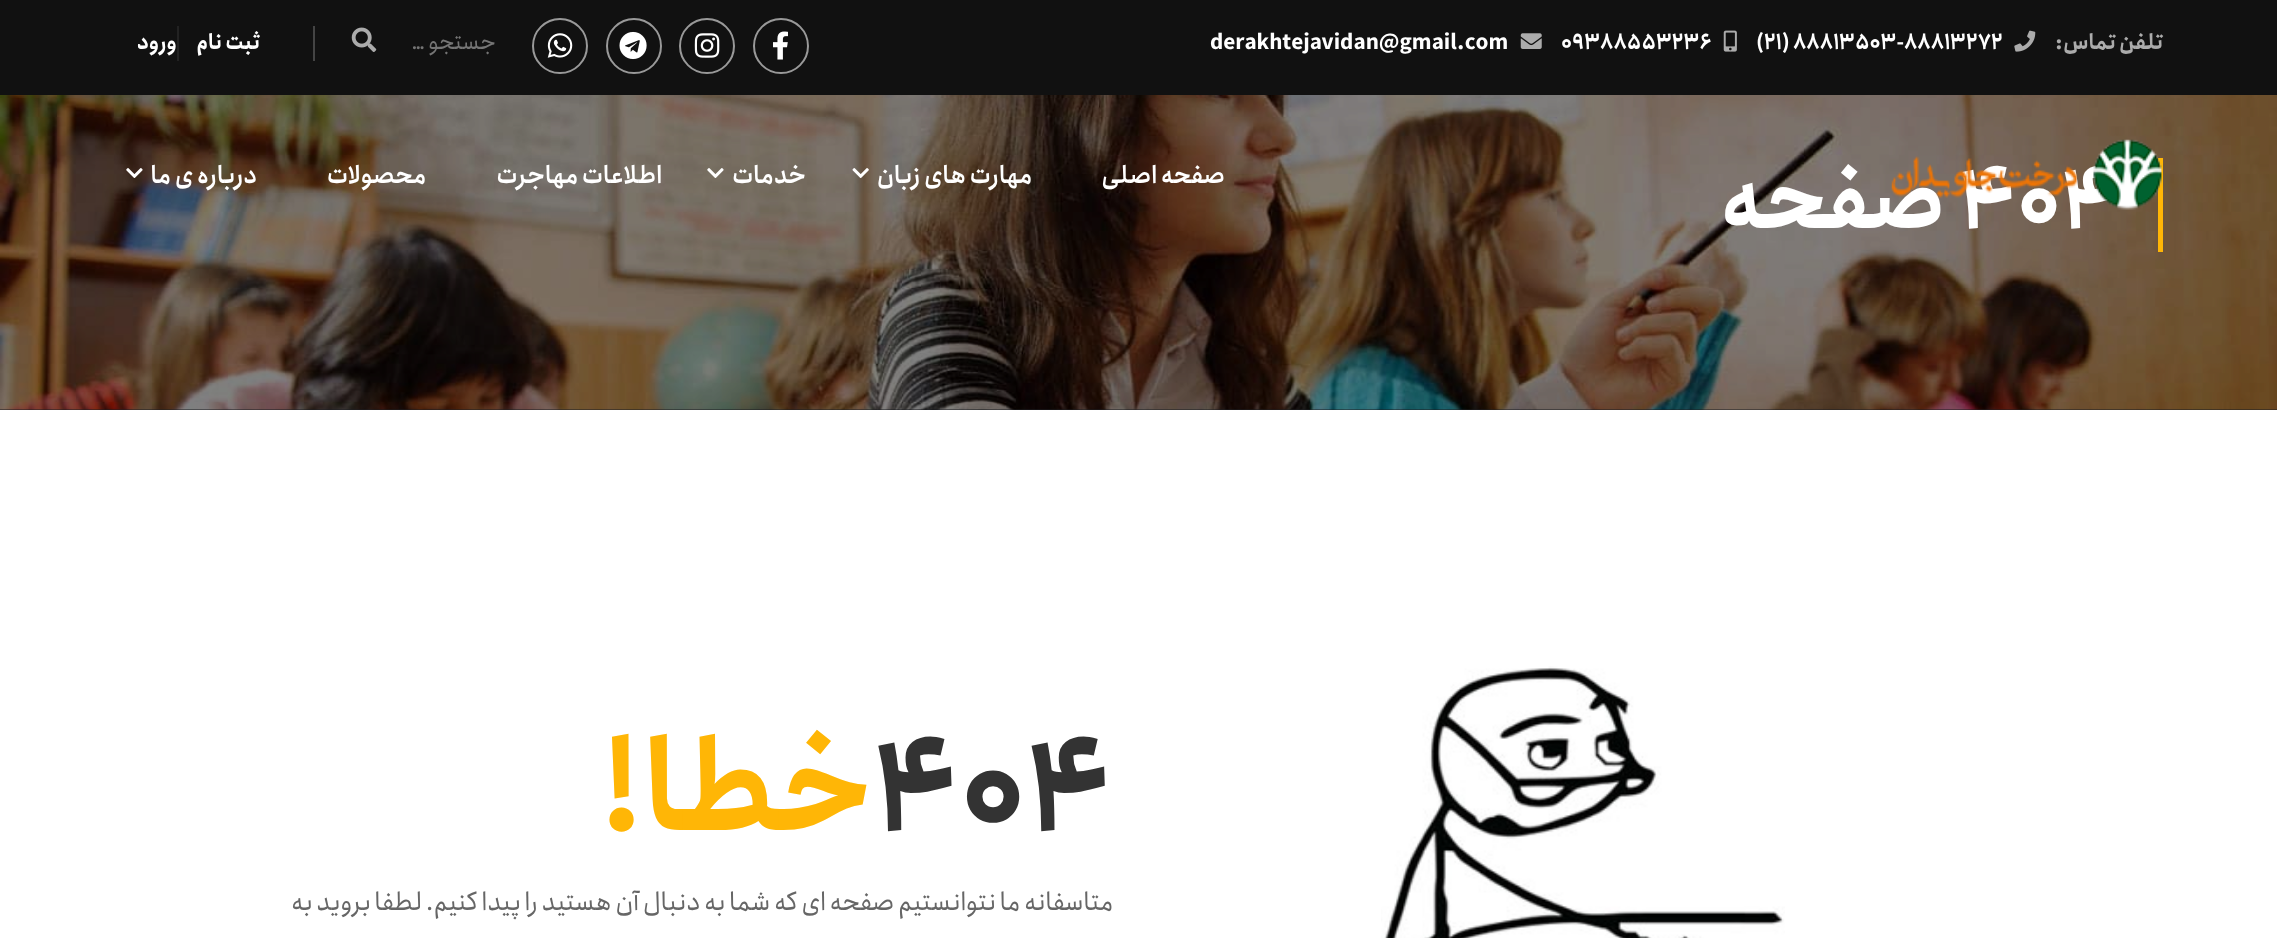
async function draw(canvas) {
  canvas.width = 2277
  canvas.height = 938
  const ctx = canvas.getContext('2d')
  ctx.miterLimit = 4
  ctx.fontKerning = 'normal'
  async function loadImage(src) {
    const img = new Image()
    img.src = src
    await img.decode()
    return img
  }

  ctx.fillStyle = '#fff'
  ctx.fillRect(0, 0, 2277, 938)
  ctx.fillStyle = '#111'
  ctx.fillRect(0, 0, 2277, 95)
  ctx.direction = 'rtl'
  ctx.font = 'bold 21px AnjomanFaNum'
  ctx.fillStyle = '#ababab'
  ctx.fillText('تلفن تماس:', 2163, 49)
  ctx.drawImage(await loadImage('image0.png'), 2014, 30, 22, 22)
  ctx.direction = 'ltr'
  ctx.fillStyle = '#fff'
  ctx.fillText('(21) 88813503-88813272', 1756, 49)
  ctx.drawImage(await loadImage('image1.png'), 1723, 30, 14, 22)
  ctx.fillText('09388553236', 1561, 49)
  ctx.drawImage(await loadImage('image2.png'), 1520, 33, 22, 16)
  ctx.fillText('derakhtejavidan@gmail.com', 1210, 49)
  ctx.beginPath()
  ctx.arc(781, 46, 27, 0, 2 * Math.PI)
  ctx.strokeStyle = '#999'
  ctx.lineWidth = 2
  ctx.stroke()
  ctx.drawImage(await loadImage('image3.png'), 773, 31, 15, 29)
  ctx.beginPath()
  ctx.arc(707, 46, 27, 0, 2 * Math.PI)
  ctx.stroke()
  ctx.drawImage(await loadImage('image4.png'), 694, 33, 26, 25)
  ctx.beginPath()
  ctx.arc(634, 46, 27, 0, 2 * Math.PI)
  ctx.stroke()
  ctx.drawImage(await loadImage('image5.png'), 619, 31, 28, 29)
  ctx.beginPath()
  ctx.arc(560, 46, 27, 0, 2 * Math.PI)
  ctx.stroke()
  ctx.drawImage(await loadImage('image6.png'), 547, 33, 26, 25)
  ctx.fillStyle = '#444'
  ctx.fillRect(313, 26, 2, 35)
  ctx.direction = 'rtl'
  ctx.font = '23px AnjomanFaNum'
  ctx.fillStyle = '#757575'
  ctx.fillText('جستجو …', 496, 49)
  ctx.drawImage(await loadImage('image7.png'), 351, 27, 26, 25)
  ctx.fillStyle = '#222'
  ctx.fillRect(177, 26, 2, 35)
  ctx.font = 'bold 21px AnjomanFaNum'
  ctx.fillStyle = '#fff'
  ctx.fillText('ثبت نام', 260, 49)
  ctx.fillText('ورود', 177, 49)
  ctx.fillStyle = '#1c1f22'
  ctx.fillRect(0, 409, 2277, 1)
  ctx.drawImage(await loadImage('image12.png'), 0, 95, 2277, 315)
  ctx.fillStyle = '#ffb606'
  ctx.fillRect(2158, 158, 5, 94)
  ctx.direction = 'ltr'
  ctx.font = 'bold 84px AnjomanFaNum'
  ctx.fillStyle = '#fff'
  ctx.fillText('404', 1959, 228)
  ctx.direction = 'rtl'
  ctx.fillText('صفحه', 1946, 228)
  ctx.drawImage(await loadImage('image8.png'), 1891, 139, 271, 71)
  ctx.font = '600 24.5px AnjomanFaNum'
  ctx.fillText('صفحه اصلی', 1225, 183)
  ctx.fillText('مهارت های زبان', 1032, 183)
  ctx.drawImage(await loadImage('image9.png'), 852, 168, 17, 10)
  ctx.fillText('خدمات', 806, 183)
  ctx.drawImage(await loadImage('image10.png'), 707, 168, 17, 10)
  ctx.fillText('اطلاعات مهاجرت', 662, 183)
  ctx.fillText('محصولات', 426, 183)
  ctx.fillText('درباره ی ما', 257, 183)
  ctx.drawImage(await loadImage('image11.png'), 126, 168, 17, 10)
  ctx.drawImage(await loadImage('image13.png'), 1381, 666, 404, 272)
  ctx.direction = 'ltr'
  ctx.font = 'bold 126px AnjomanFaNum'
  ctx.fillStyle = '#333'
  ctx.fillText('404', 873, 830)
  ctx.direction = 'rtl'
  ctx.fillStyle = '#ffb606'
  ctx.fillText('خطا!', 873, 830)
  ctx.font = '26.25px AnjomanFaNum'
  ctx.fillStyle = '#666'
  ctx.fillText('متاسفانه ما نتوانستیم صفحه ای که شما به دنبال آن هستید را پیدا کنیم. لطفا بروید به', 1113, 910)
}

draw(document.querySelector('canvas'))
